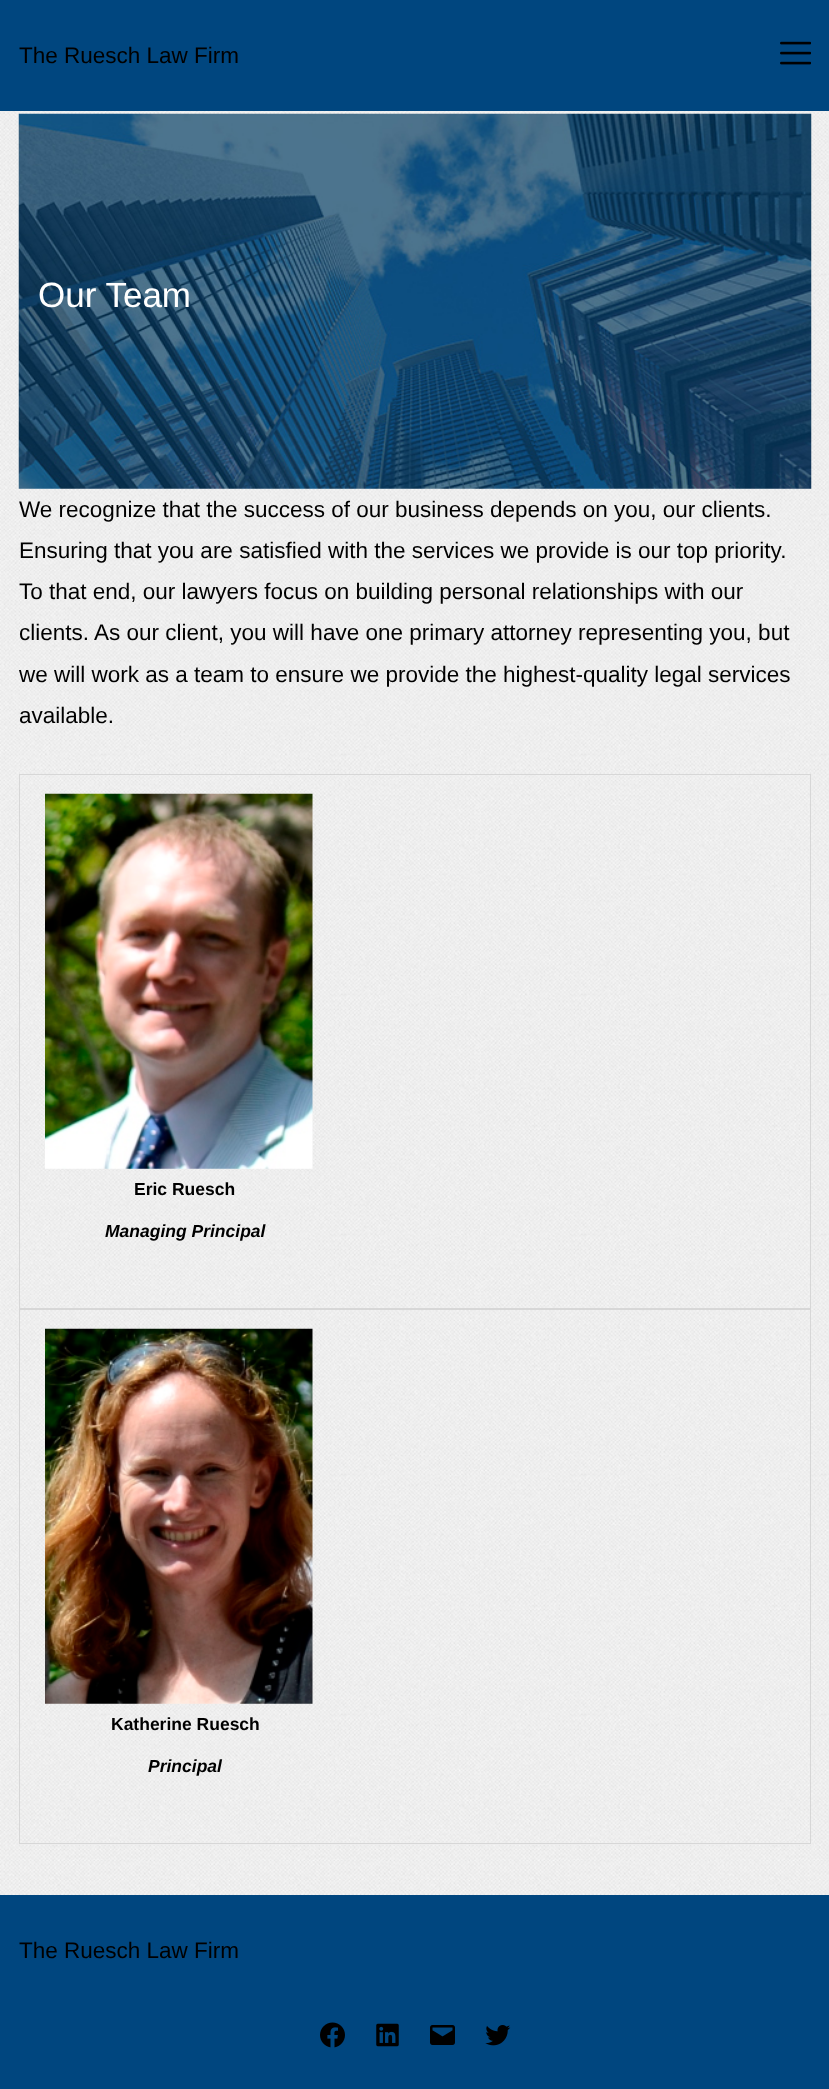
async function draw(canvas) {
  canvas.width = 829
  canvas.height = 2089
  const ctx = canvas.getContext('2d')
  ctx.miterLimit = 4
  ctx.fontKerning = 'normal'
  async function loadImage(src) {
    const img = new Image()
    img.src = src
    await img.decode()
    return img
  }

  ctx.fillStyle = '#fff'
  ctx.fillRect(0, 0, 829, 2089)
  ctx.drawImage(await loadImage('image0.png'), 0, 111, 829, 1784)
  ctx.fillStyle = '#00467f'
  ctx.fillRect(0, 0, 829, 111)
  ctx.font = '22.5px Liberation Sans'
  ctx.fillStyle = '#000'
  ctx.fillText('The Ruesch Law Firm', 19, 63)
  ctx.drawImage(await loadImage('image1.png'), 780, 41, 31, 24)
  ctx.drawImage(await loadImage('image2.png'), 18, 113, 794, 376)
  ctx.font = '35px Liberation Sans'
  ctx.fillStyle = '#fff'
  ctx.fillText('Our Team', 38, 307)
  ctx.font = '22.5px Liberation Sans'
  ctx.fillStyle = '#000'
  ctx.fillText('We recognize that the success of our business depends on you, our clients.', 19, 517)
  ctx.fillText('Ensuring that you are satisfied with the services we provide is our top priority.', 19, 558)
  ctx.fillText('To that end, our lawyers focus on building personal relationships with our', 19, 599)
  ctx.fillText('clients. As our client, you will have one primary attorney representing you, but', 19, 640)
  ctx.fillText('we will work as a team to ensure we provide the highest-quality legal services', 19, 682)
  ctx.fillText('available.', 19, 723)
  ctx.fillStyle = '#eee'
  ctx.fillRect(19, 1844, 794, 1)
  ctx.fillStyle = '#d7d7d7'
  ctx.fillRect(19, 774, 1, 1070)
  ctx.fillRect(20, 774, 791, 1)
  ctx.fillRect(810, 774, 1, 535)
  ctx.fillRect(20, 1308, 791, 2)
  ctx.drawImage(await loadImage('image3.png'), 45, 793, 268, 376)
  ctx.font = 'bold 17.5px Liberation Sans'
  ctx.fillStyle = '#000'
  ctx.fillText('Eric Ruesch', 134, 1195)
  ctx.font = 'italic bold 17.5px Liberation Sans'
  ctx.fillText('Managing Principal', 105, 1237)
  ctx.fillStyle = '#d7d7d7'
  ctx.fillRect(810, 1309, 1, 535)
  ctx.fillRect(20, 1843, 791, 1)
  ctx.drawImage(await loadImage('image4.png'), 45, 1328, 268, 376)
  ctx.font = 'bold 17.5px Liberation Sans'
  ctx.fillStyle = '#000'
  ctx.fillText('Katherine Ruesch', 111, 1730)
  ctx.font = 'italic bold 17.5px Liberation Sans'
  ctx.fillText('Principal', 148, 1772)
  ctx.fillStyle = '#00467f'
  ctx.fillRect(0, 1895, 829, 194)
  ctx.font = '22.5px Liberation Sans'
  ctx.fillStyle = '#000'
  ctx.fillText('The Ruesch Law Firm', 19, 1958)
  ctx.drawImage(await loadImage('image5.png'), 320, 2022, 25, 26)
  ctx.drawImage(await loadImage('image6.png'), 376, 2023, 23, 24)
  ctx.drawImage(await loadImage('image7.png'), 430, 2025, 25, 20)
  ctx.drawImage(await loadImage('image8.png'), 485, 2025, 26, 21)
}

draw(document.querySelector('canvas'))
